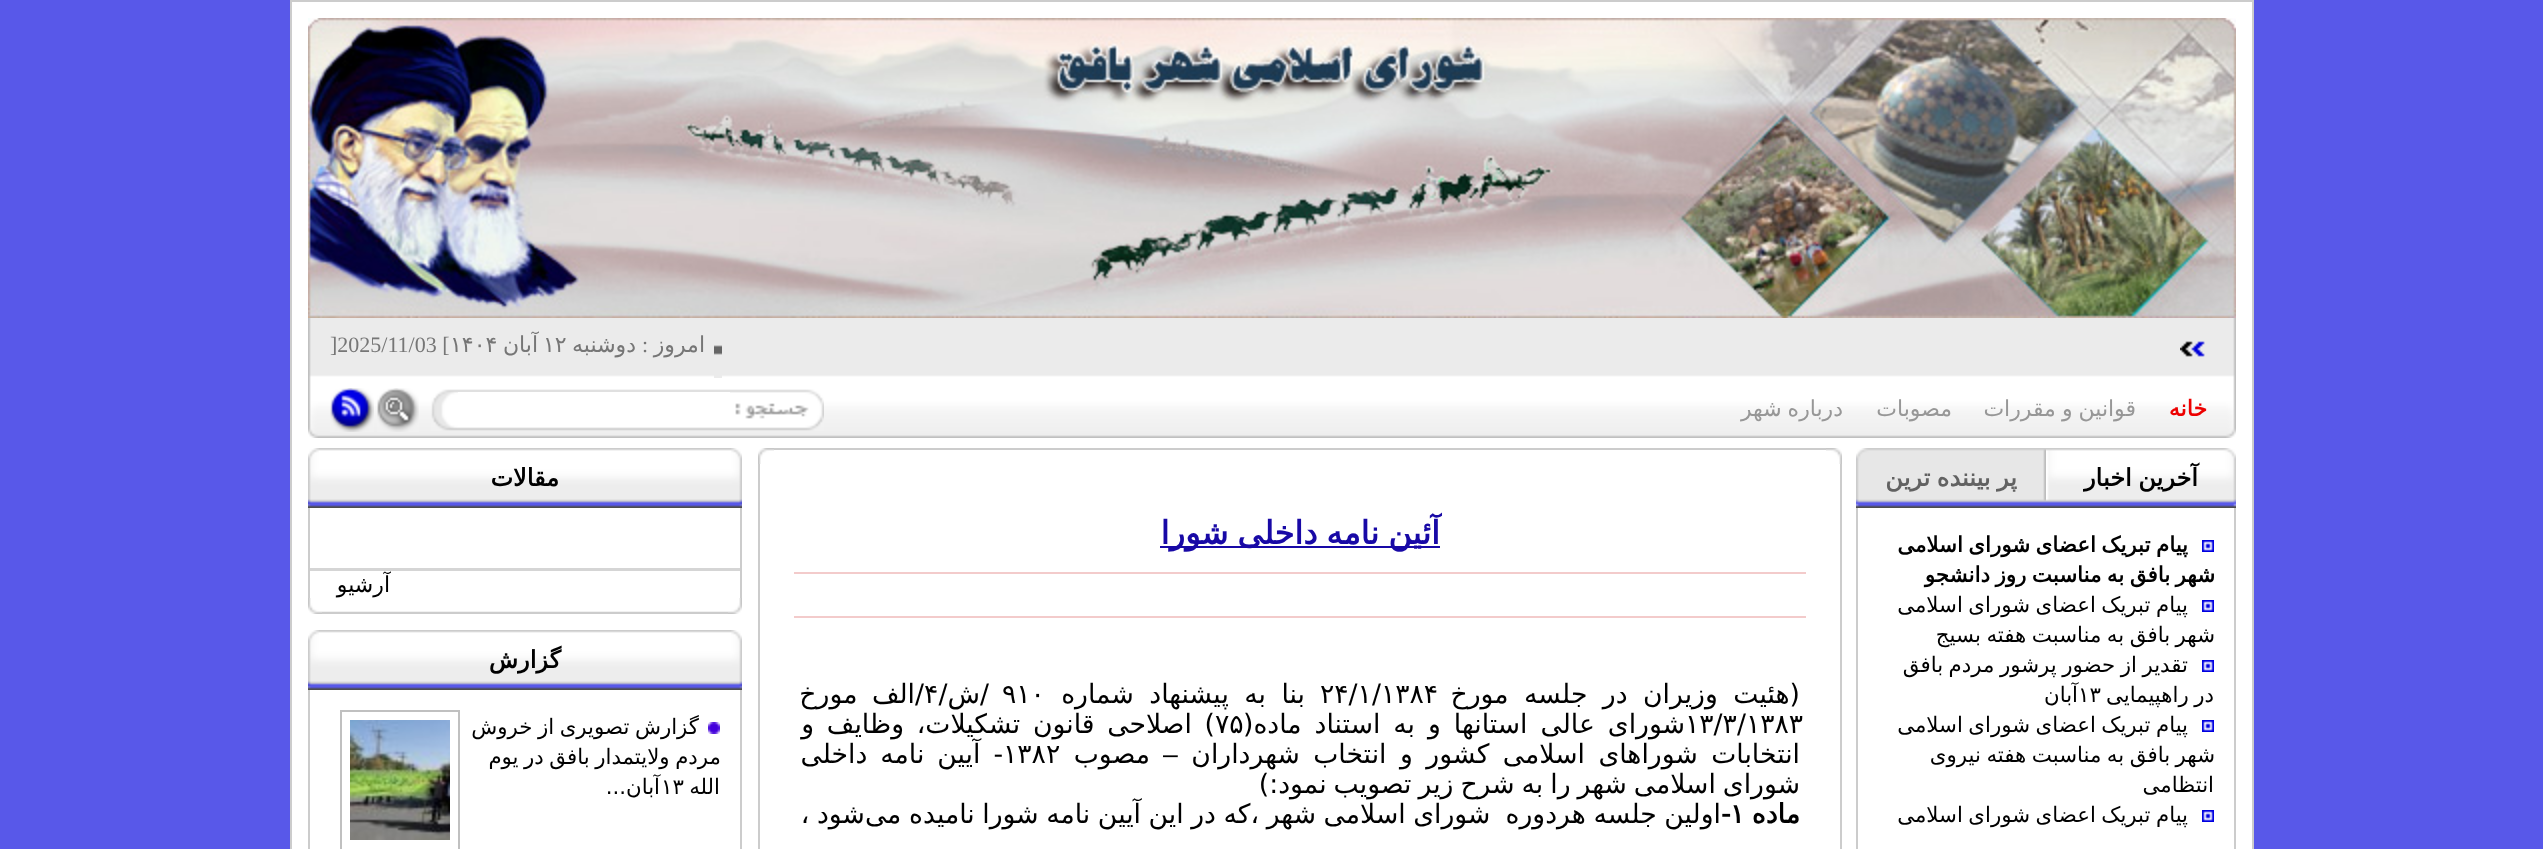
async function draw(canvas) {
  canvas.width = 2543
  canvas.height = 849
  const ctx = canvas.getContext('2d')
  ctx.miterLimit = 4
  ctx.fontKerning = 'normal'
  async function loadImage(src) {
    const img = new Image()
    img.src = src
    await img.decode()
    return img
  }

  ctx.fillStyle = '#5858e9'
  ctx.fillRect(0, 0, 2543, 849)
  ctx.fillStyle = '#fff'
  ctx.beginPath()
  ctx.rect(291, 1, 1962, 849)
  ctx.fill()
  ctx.strokeStyle = '#ccc'
  ctx.lineWidth = 2
  ctx.stroke()
  ctx.drawImage(await loadImage('image0.png'), 308, 18, 1928, 300)
  ctx.drawImage(await loadImage('image1.png'), 318, 318, 1908, 120)
  ctx.drawImage(await loadImage('image2.png'), 2226, 318, 10, 120)
  ctx.drawImage(await loadImage('image3.png'), 2180, 341, 25, 16)
  ctx.drawImage(await loadImage('image4.png'), 714, 345, 8, 33)
  ctx.direction = 'rtl'
  ctx.font = '22px DejaVu Sans'
  ctx.fillStyle = '#767676'
  ctx.fillText('امروز', 705, 352)
  ctx.font = '22px Liberation Serif'
  ctx.fillText(':', 648, 352)
  ctx.font = '22px DejaVu Sans'
  ctx.fillText('دوشنبه', 636, 352)
  ctx.direction = 'ltr'
  ctx.fillText('۱۲', 543, 352)
  ctx.direction = 'rtl'
  ctx.fillText('آبان', 538, 352)
  ctx.direction = 'ltr'
  ctx.fillText('۱۴۰۴', 450, 352)
  ctx.font = '22px Liberation Serif'
  ctx.fillText(']2025/11/03 [', 330, 352)
  ctx.direction = 'rtl'
  ctx.font = 'bold 22px DejaVu Sans'
  ctx.fillStyle = '#ed0000'
  ctx.fillText('خانه', 2207, 416)
  ctx.wordSpacing = '-1px'
  ctx.font = '22px DejaVu Sans'
  ctx.fillStyle = '#979797'
  ctx.fillText('قوانین و مقررات', 2136, 416)
  ctx.wordSpacing = '0px'
  ctx.fillText('مصوبات', 1952, 416)
  ctx.wordSpacing = '-1px'
  ctx.fillText('درباره شهر', 1843, 416)
  ctx.drawImage(await loadImage('image5.png'), 730, 389, 94, 42)
  ctx.drawImage(await loadImage('image6.png'), 458, 389, 272, 42)
  ctx.fillStyle = '#fff'
  ctx.fillRect(458, 392, 272, 1)
  ctx.drawImage(await loadImage('image7.png'), 431, 389, 27, 42)
  ctx.drawImage(await loadImage('image8.png'), 377, 388, 42, 44)
  ctx.drawImage(await loadImage('image9.png'), 330, 388, 44, 44)
  ctx.drawImage(await loadImage('image10.png'), 308, 318, 10, 120)
  ctx.drawImage(await loadImage('image11.png'), 2046, 448, 190, 60)
  ctx.font = 'bold 24px DejaVu Sans'
  ctx.fillStyle = '#000'
  ctx.fillText('آخرین اخبار', 2198, 486)
  ctx.drawImage(await loadImage('image12.png'), 1856, 448, 190, 60)
  ctx.fillStyle = '#626262'
  ctx.fillText('پر بیننده ترین', 2017, 486)
  ctx.fillStyle = '#ccc'
  ctx.fillRect(2234, 508, 2, 341)
  ctx.fillRect(1856, 508, 2, 341)
  ctx.drawImage(await loadImage('image13.png'), 2202, 540, 12, 12)
  ctx.wordSpacing = '-1.25px'
  ctx.font = 'bold 21.3px DejaVu Sans'
  ctx.fillStyle = '#000'
  ctx.fillText('پیام تبریک اعضای شورای اسلامی', 2188, 552)
  ctx.fillText('شهر بافق به مناسبت روز دانشجو', 2215, 582)
  ctx.drawImage(await loadImage('image13.png'), 2202, 600, 12, 12)
  ctx.font = '21.3px DejaVu Sans'
  ctx.fillText('پیام تبریک اعضای شورای اسلامی', 2188, 612)
  ctx.fillText('شهر بافق به مناسبت هفته بسیج', 2215, 642)
  ctx.drawImage(await loadImage('image13.png'), 2202, 660, 12, 12)
  ctx.fillText('تقدیر از حضور پرشور مردم بافق', 2188, 672)
  ctx.fillText('در راهپیمایی', 2214, 702)
  ctx.wordSpacing = '0px'
  ctx.direction = 'ltr'
  ctx.fillText('۱۳', 2078, 702)
  ctx.direction = 'rtl'
  ctx.fillText('آبان', 2078, 702)
  ctx.drawImage(await loadImage('image13.png'), 2202, 720, 12, 12)
  ctx.wordSpacing = '-1.25px'
  ctx.fillText('پیام تبریک اعضای شورای اسلامی', 2188, 732)
  ctx.fillText('شهر بافق به مناسبت هفته نیروی', 2215, 762)
  ctx.wordSpacing = '0px'
  ctx.fillText('انتظامی', 2214, 792)
  ctx.drawImage(await loadImage('image13.png'), 2202, 810, 12, 12)
  ctx.wordSpacing = '-1.25px'
  ctx.fillText('پیام تبریک اعضای شورای اسلامی', 2188, 822)
  ctx.drawImage(await loadImage('image14.png'), 1826, 448, 16, 16)
  ctx.fillStyle = '#ccc'
  ctx.fillRect(774, 448, 1052, 2)
  ctx.drawImage(await loadImage('image15.png'), 758, 448, 16, 16)
  ctx.fillRect(1840, 464, 2, 385)
  ctx.fillRect(758, 464, 2, 385)
  ctx.fillStyle = '#1809a6'
  ctx.fillRect(1160, 546, 280, 2)
  ctx.font = 'bold 32px DejaVu Sans'
  ctx.fillText('آئین نامه داخلی شورا', 1440, 544)
  ctx.fillStyle = '#f3cbcb'
  ctx.fillRect(794, 572, 1012, 2)
  ctx.fillRect(794, 616, 1012, 2)
  ctx.wordSpacing = '7px'
  ctx.font = '26.65px DejaVu Sans'
  ctx.fillStyle = '#000'
  ctx.fillText('(هئیت وزیران در جلسه مورخ', 1800, 703)
  ctx.wordSpacing = '0px'
  ctx.direction = 'ltr'
  ctx.fillText('۲۴/۱/۱۳۸۴', 1320, 703)
  ctx.wordSpacing = '7px'
  ctx.direction = 'rtl'
  ctx.fillText('بنا به پیشنهاد شماره', 1305, 703)
  ctx.wordSpacing = '0px'
  ctx.direction = 'ltr'
  ctx.fillText('۹۱۰', 1002, 703)
  ctx.direction = 'rtl'
  ctx.fillText('/ش/', 989, 703)
  ctx.direction = 'ltr'
  ctx.fillText('۴', 924, 703)
  ctx.wordSpacing = '6px'
  ctx.direction = 'rtl'
  ctx.fillText('/الف مورخ', 924, 703)
  ctx.wordSpacing = '0px'
  ctx.direction = 'ltr'
  ctx.fillText('۱۳/۳/۱۳۸۳', 1685, 733)
  ctx.wordSpacing = '4.5px'
  ctx.direction = 'rtl'
  ctx.fillText('شورای عالی استانها و به استناد ماده(', 1685, 733)
  ctx.wordSpacing = '0px'
  ctx.direction = 'ltr'
  ctx.fillText('۷۵', 1215, 733)
  ctx.wordSpacing = '4.25px'
  ctx.direction = 'rtl'
  ctx.fillText(') اصلاحی قانون تشکیلات، وظایف و', 1215, 733)
  ctx.wordSpacing = '5px'
  ctx.fillText('انتخابات شوراهای اسلامی کشور و انتخاب شهرداران', 1800, 763)
  ctx.wordSpacing = '0px'
  ctx.direction = 'ltr'
  ctx.font = '26.65px Liberation Sans'
  ctx.fillText('–', 1163, 763)
  ctx.direction = 'rtl'
  ctx.font = '26.65px DejaVu Sans'
  ctx.fillText('مصوب', 1150, 763)
  ctx.direction = 'ltr'
  ctx.fillText('۱۳۸۲', 1003, 763)
  ctx.wordSpacing = '4.5px'
  ctx.direction = 'rtl'
  ctx.fillText('- آیین نامه داخلی', 1003, 763)
  ctx.wordSpacing = '-1.5px'
  ctx.fillText('شورای اسلامی شهر را به شرح زیر تصویب نمود:)', 1800, 793)
  ctx.wordSpacing = '0px'
  ctx.font = 'bold 26.65px DejaVu Sans'
  ctx.fillText('ماده', 1800, 823)
  ctx.direction = 'ltr'
  ctx.fillText('۱', 1730, 823)
  ctx.fillText('-', 1721, 823)
  ctx.wordSpacing = '-0.9px'
  ctx.direction = 'rtl'
  ctx.font = '26.65px DejaVu Sans'
  ctx.fillText('اولین جلسه هردوره  شورای اسلامی شهر ،که در این آیین نامه شورا نامیده می‌شود ،', 1721, 823)
  ctx.drawImage(await loadImage('image16.png'), 308, 448, 434, 60)
  ctx.drawImage(await loadImage('image17.png'), 731, 448, 11, 59)
  ctx.wordSpacing = '0px'
  ctx.font = 'bold 24px DejaVu Sans'
  ctx.fillText('مقالات', 559, 486)
  ctx.drawImage(await loadImage('image18.png'), 308, 448, 11, 59)
  ctx.fillStyle = '#ccc'
  ctx.fillRect(740, 508, 2, 60)
  ctx.fillRect(308, 508, 2, 60)
  ctx.fillStyle = '#d5d5d5'
  ctx.fillRect(308, 568, 434, 3)
  ctx.fillStyle = '#ccc'
  ctx.fillRect(740, 568, 2, 30)
  ctx.fillRect(308, 568, 2, 30)
  ctx.font = '22px DejaVu Sans'
  ctx.fillStyle = '#000'
  ctx.fillText('آرشیو', 390, 592)
  ctx.fillStyle = '#f1f1f1'
  ctx.fillRect(322, 611, 406, 1)
  ctx.drawImage(await loadImage('image19.png'), 728, 598, 14, 16)
  ctx.fillStyle = '#ccc'
  ctx.fillRect(322, 612, 406, 2)
  ctx.drawImage(await loadImage('image20.png'), 308, 598, 14, 16)
  ctx.drawImage(await loadImage('image16.png'), 308, 630, 434, 60)
  ctx.drawImage(await loadImage('image17.png'), 731, 630, 11, 59)
  ctx.font = 'bold 24px DejaVu Sans'
  ctx.fillStyle = '#000'
  ctx.fillText('گزارش', 561, 668)
  ctx.drawImage(await loadImage('image18.png'), 308, 630, 11, 59)
  ctx.fillStyle = '#ccc'
  ctx.fillRect(740, 690, 2, 159)
  ctx.fillRect(308, 690, 2, 159)
  ctx.drawImage(await loadImage('image21.png'), 708, 722, 12, 12)
  ctx.wordSpacing = '-1.25px'
  ctx.font = '21.3px DejaVu Sans'
  ctx.fillStyle = '#000'
  ctx.fillText('گزارش تصویری از خروش', 699, 734)
  ctx.strokeStyle = '#c0c0c0'
  ctx.strokeRect(341, 711, 118, 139)
  ctx.drawImage(await loadImage('image22.png'), 350, 720, 100, 120)
  ctx.fillText('مردم ولایتمدار بافق در یوم', 721, 764)
  ctx.wordSpacing = '0px'
  ctx.fillText('الله', 720, 794)
  ctx.direction = 'ltr'
  ctx.fillText('۱۳', 661, 794)
  ctx.direction = 'rtl'
  ctx.fillText('آبان...', 660, 794)
}

draw(document.querySelector('canvas'))
